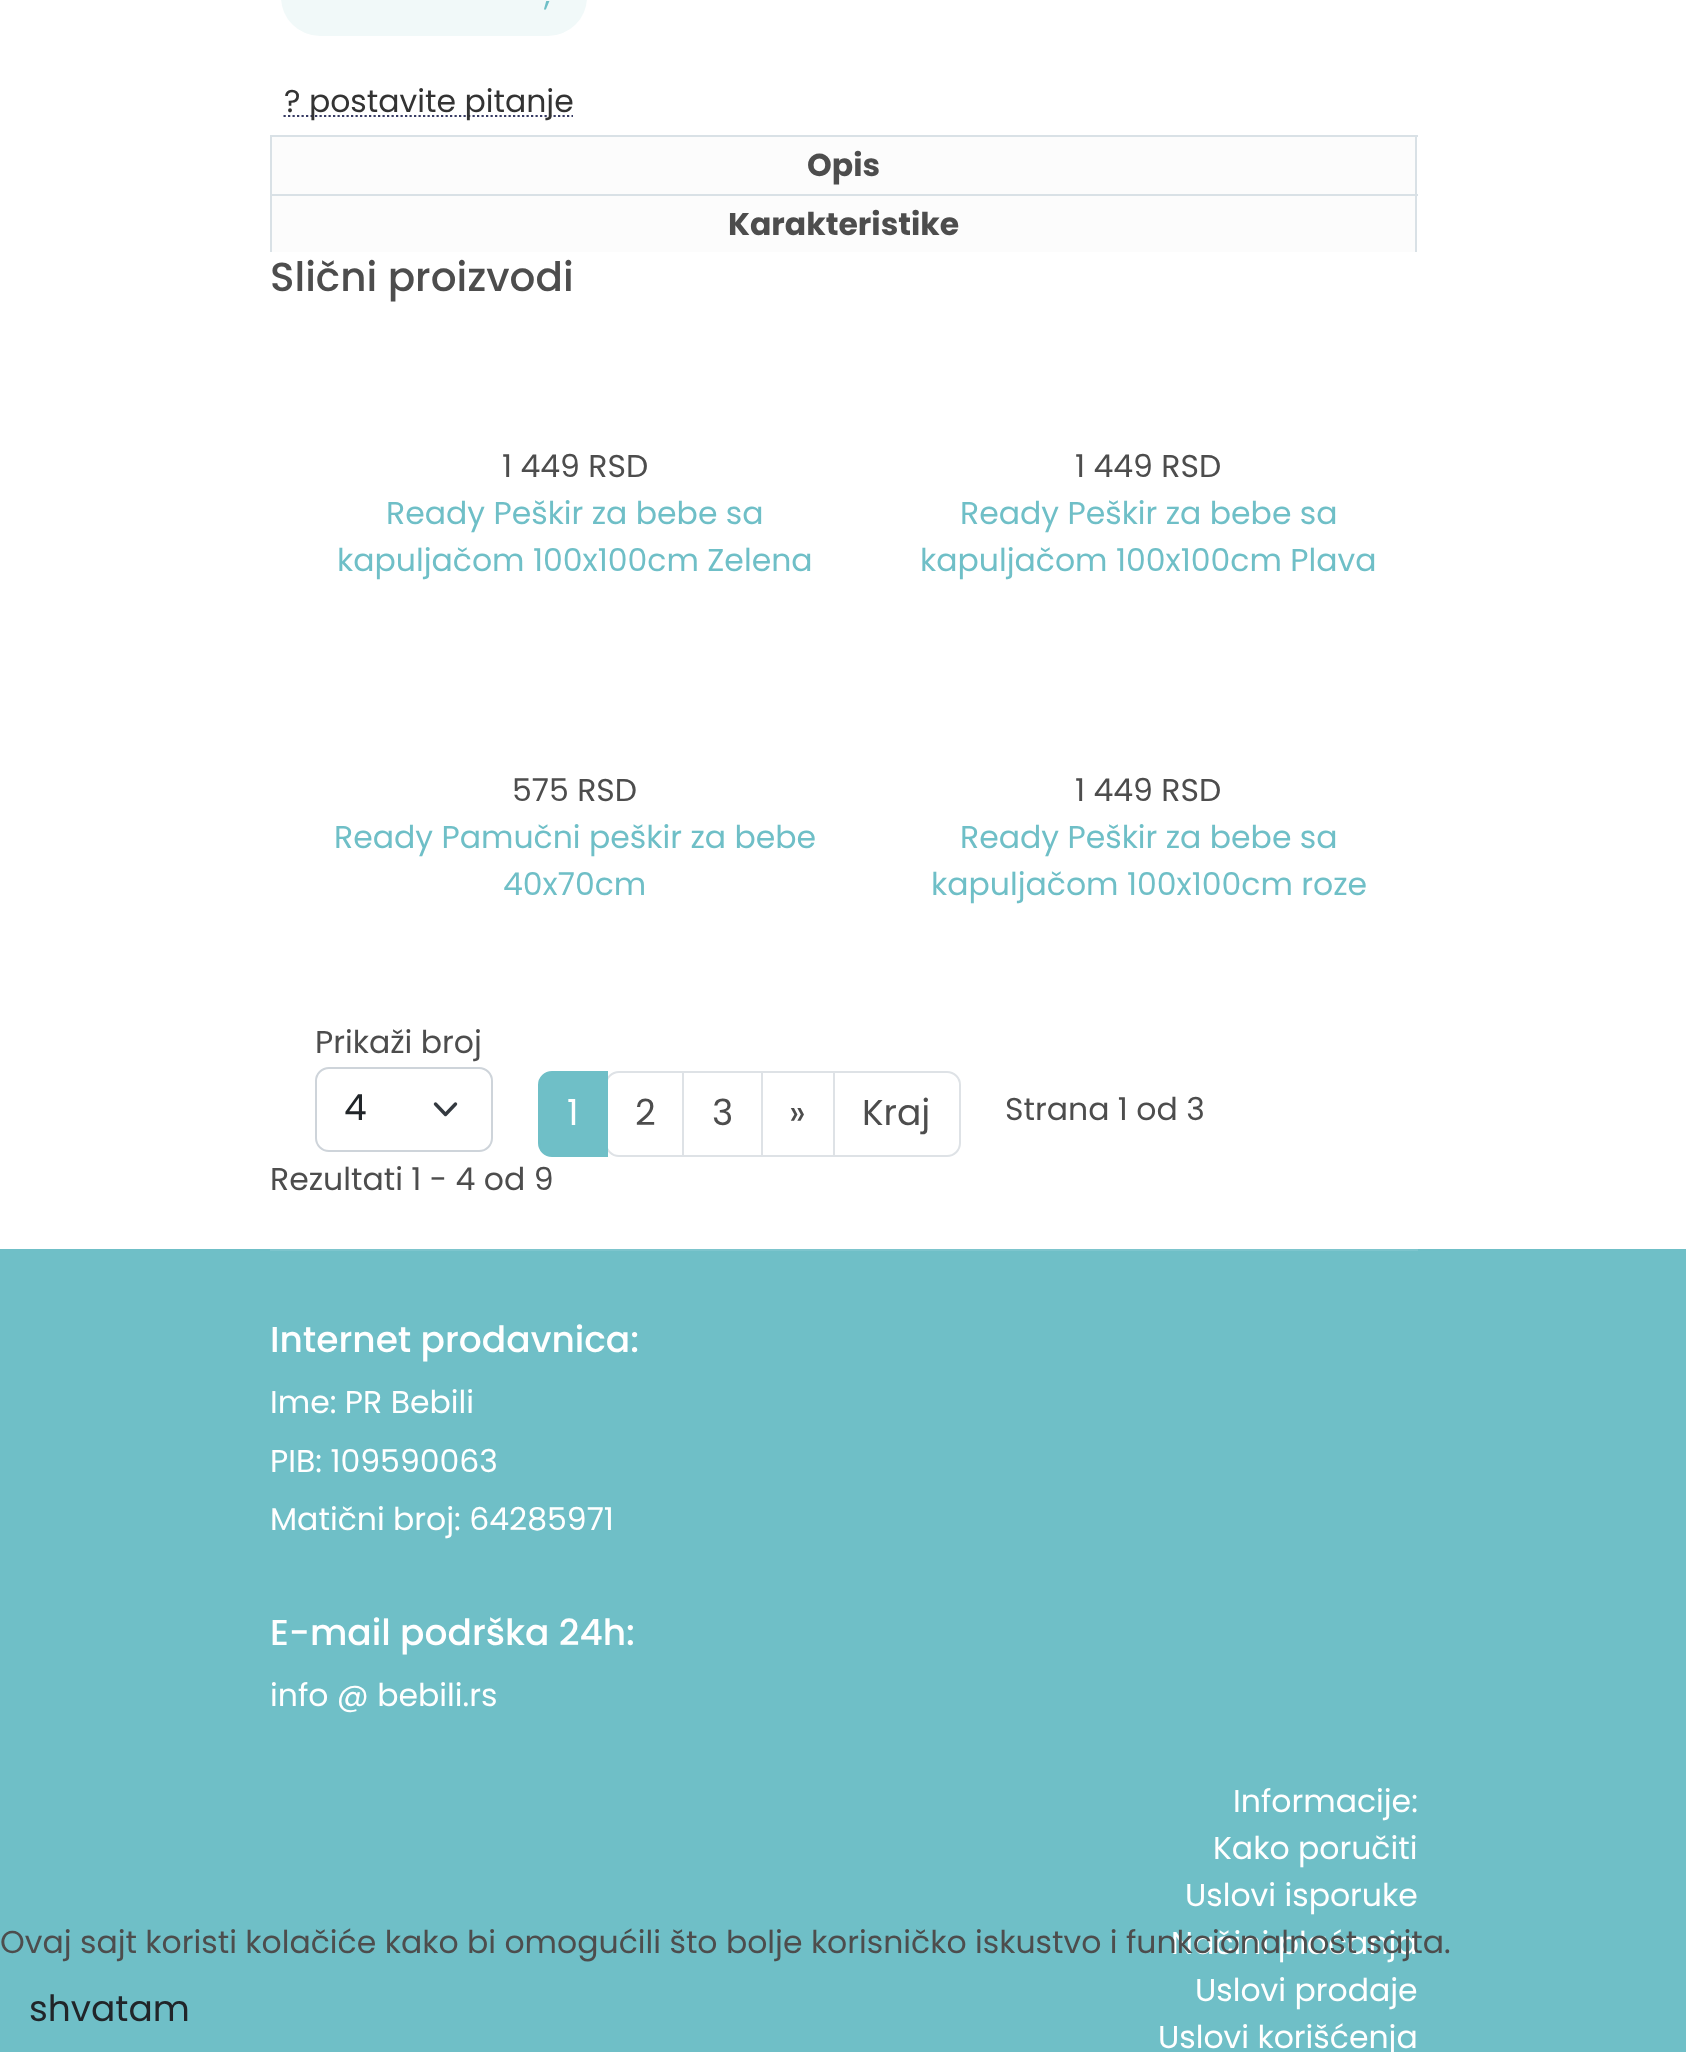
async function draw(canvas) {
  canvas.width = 1686
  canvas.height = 2052
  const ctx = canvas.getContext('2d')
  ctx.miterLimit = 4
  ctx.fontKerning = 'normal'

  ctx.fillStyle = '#fff'
  ctx.fillRect(0, 0, 1686, 2052)
  ctx.fillStyle = '#f1f9f9'
  ctx.beginPath()
  ctx.roundRect(281, -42, 306, 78, 41.5)
  ctx.fill()
  ctx.font = '31.5px Poppins'
  ctx.fillStyle = '#6fbfc7'
  ctx.fillText(',', 544, 5)
  ctx.beginPath()
  ctx.moveTo(283.5, 116)
  ctx.lineTo(573, 116)
  ctx.strokeStyle = '#363a63'
  ctx.lineWidth = 2.2
  ctx.setLineDash([2.25, 2.25])
  ctx.stroke()
  ctx.fillStyle = '#333'
  ctx.fillText('? postavite pitanje', 284, 112)
  ctx.fillStyle = '#fcfcfc'
  ctx.fillRect(272, 137, 1143, 57)
  ctx.fillStyle = '#d9e1e6'
  ctx.fillRect(270, 135, 1148, 2)
  ctx.fillRect(1415, 135, 2, 59)
  ctx.fillRect(270, 135, 2, 59)
  ctx.font = 'bold 31.5px Poppins'
  ctx.fillStyle = '#4d4d4d'
  ctx.fillText('Opis', 807, 176)
  ctx.fillStyle = '#fcfcfc'
  ctx.fillRect(272, 196, 1143, 56)
  ctx.fillStyle = '#d9e1e6'
  ctx.fillRect(270, 194, 1148, 2)
  ctx.fillRect(1415, 194, 2, 58)
  ctx.fillRect(270, 194, 2, 58)
  ctx.fillStyle = '#4d4d4d'
  ctx.fillText('Karakteristike', 728, 235)
  ctx.font = '500 40.5px Poppins'
  ctx.fillText('Slični proizvodi', 270, 291)
  ctx.font = '31.5px Poppins'
  ctx.fillText('1 449 RSD', 502, 477)
  ctx.fillStyle = '#6fbfc7'
  ctx.fillText('Ready Peškir za bebe sa', 386, 524)
  ctx.fillText('kapuljačom 100x100cm Zelena', 337, 571)
  ctx.fillStyle = '#4d4d4d'
  ctx.fillText('1 449 RSD', 1075, 477)
  ctx.fillStyle = '#6fbfc7'
  ctx.fillText('Ready Peškir za bebe sa', 960, 524)
  ctx.fillText('kapuljačom 100x100cm Plava', 920, 571)
  ctx.fillStyle = '#4d4d4d'
  ctx.fillText('575 RSD', 512, 801)
  ctx.fillStyle = '#6fbfc7'
  ctx.fillText('Ready Pamučni peškir za bebe', 334, 848)
  ctx.fillText('40x70cm', 503, 895)
  ctx.fillStyle = '#4d4d4d'
  ctx.fillText('1 449 RSD', 1075, 801)
  ctx.fillStyle = '#6fbfc7'
  ctx.fillText('Ready Peškir za bebe sa', 960, 848)
  ctx.fillText('kapuljačom 100x100cm roze', 931, 895)
  ctx.fillStyle = '#4d4d4d'
  ctx.fillText('Prikaži broj', 315, 1053)
  ctx.beginPath()
  ctx.moveTo(435.5, 1104)
  ctx.lineTo(445.5, 1114.5)
  ctx.lineTo(455.5, 1104)
  ctx.strokeStyle = '#343a40'
  ctx.lineWidth = 3.4
  ctx.lineCap = 'round'
  ctx.lineJoin = 'round'
  ctx.setLineDash([])
  ctx.stroke()
  ctx.beginPath()
  ctx.roundRect(316, 1068, 176, 83, 13)
  ctx.strokeStyle = '#ced4da'
  ctx.lineWidth = 2
  ctx.lineJoin = 'miter'
  ctx.stroke()
  ctx.font = '36px Poppins'
  ctx.fillStyle = '#212529'
  ctx.fillText('4', 344, 1120)
  ctx.beginPath()
  ctx.roundRect(606, 1072, 77, 84, [13, 0, 0, 13])
  ctx.strokeStyle = '#dee2e6'
  ctx.stroke()
  ctx.fillStyle = '#6fbfc7'
  ctx.beginPath()
  ctx.roundRect(539, 1072, 68, 84, [13, 0, 0, 13])
  ctx.fill()
  ctx.strokeStyle = '#6fbfc7'
  ctx.stroke()
  ctx.fillStyle = '#fff'
  ctx.fillText('1', 567, 1125)
  ctx.fillStyle = '#4d4d4d'
  ctx.fillText('2', 635, 1125)
  ctx.strokeStyle = '#dee2e6'
  ctx.strokeRect(683, 1072, 79, 84)
  ctx.fillText('3', 712, 1125)
  ctx.strokeRect(762, 1072, 72, 84)
  ctx.fillText('»', 789, 1125)
  ctx.fillStyle = '#fff'
  ctx.beginPath()
  ctx.roundRect(834, 1072, 126, 84, [0, 13, 13, 0])
  ctx.fill()
  ctx.stroke()
  ctx.fillStyle = '#4d4d4d'
  ctx.fillText('Kraj', 862, 1125)
  ctx.font = '31.5px Poppins'
  ctx.fillText('Strana 1 od 3', 1005, 1120)
  ctx.fillText('Rezultati 1 - 4 od 9', 270, 1190)
  ctx.fillStyle = '#6fbfc7'
  ctx.fillRect(0, 1249, 1686, 803)
  ctx.fillStyle = '#7dc5cd'
  ctx.fillRect(270, 1249, 1148, 2)
  ctx.font = '500 36px Poppins'
  ctx.fillStyle = '#fff'
  ctx.fillText('Internet prodavnica:', 270, 1352)
  ctx.font = '31.5px Poppins'
  ctx.fillText('Ime: PR Bebili', 270, 1413)
  ctx.fillText('PIB: 109590063', 270, 1472)
  ctx.fillText('Matični broj: 64285971', 270, 1530)
  ctx.font = '500 36px Poppins'
  ctx.fillText('E-mail podrška 24h:', 270, 1645)
  ctx.font = '31.5px Poppins'
  ctx.fillText('info @ bebili.rs', 270, 1706)
  ctx.fillText('Informacije:', 1233, 1812)
  ctx.fillText('Kako poručiti', 1213, 1859)
  ctx.fillText('Uslovi isporuke', 1185, 1906)
  ctx.fillText('Načini plaćanja', 1171, 1954)
  ctx.fillText('Uslovi prodaje', 1195, 2001)
  ctx.fillText('Uslovi korišćenja', 1158, 2048)
  ctx.fillStyle = '#4d4d4d'
  ctx.fillText('Ovaj sajt koristi kolačiće kako bi omogućili što bolje korisničko iskustvo i funkcionalnost sajta.', 0, 1953)
  ctx.font = '36px Poppins'
  ctx.fillStyle = '#212529'
  ctx.fillText('shvatam', 29, 2021)
}

draw(document.querySelector('canvas'))
